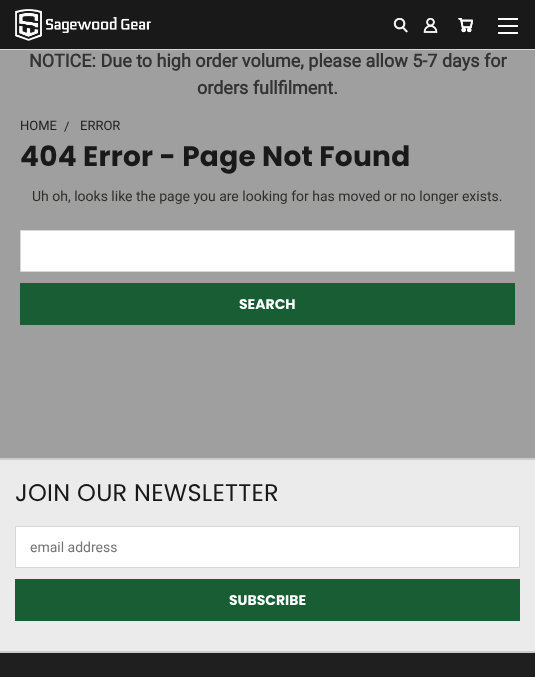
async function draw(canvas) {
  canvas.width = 535
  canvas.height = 677
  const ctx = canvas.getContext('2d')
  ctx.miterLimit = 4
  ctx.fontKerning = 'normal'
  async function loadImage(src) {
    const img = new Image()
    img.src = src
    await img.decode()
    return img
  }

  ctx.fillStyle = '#9f9f9f'
  ctx.fillRect(0, 0, 535, 677)
  ctx.fillStyle = '#191919'
  ctx.fillRect(0, 0, 535, 49)
  ctx.fillStyle = '#d7d7d7'
  ctx.fillRect(0, 49, 535, 1)
  ctx.drawImage(await loadImage('image0.png'), 15, 9, 136, 32)
  ctx.drawImage(await loadImage('image1.png'), 393, 18, 15, 15)
  ctx.drawImage(await loadImage('image2.png'), 423, 18, 15, 15)
  ctx.drawImage(await loadImage('image3.png'), 458, 18, 15, 15)
  ctx.fillStyle = '#fff'
  ctx.fillRect(498, 25, 20, 2)
  ctx.fillRect(498, 18, 20, 2)
  ctx.fillRect(498, 32, 20, 2)
  ctx.font = 'bold 18px Roboto'
  ctx.fillStyle = '#333'
  ctx.fillText('NOTICE: Due to high order volume, please allow 5-7 days for', 29, 67)
  ctx.fillText('orders fullfilment.', 197, 94)
  ctx.font = '13px Roboto'
  ctx.fillStyle = '#1f1f1f'
  ctx.fillText('HOME', 20, 130)
  ctx.fillText('/', 64, 131)
  ctx.fillText('ERROR', 80, 130)
  ctx.letterSpacing = '0.25px'
  ctx.font = 'bold 28px Poppins'
  ctx.fillStyle = '#191919'
  ctx.fillText('404 Error - Page Not Found', 20, 166)
  ctx.letterSpacing = '0px'
  ctx.font = '14px Roboto'
  ctx.fillStyle = '#2f2f2b'
  ctx.fillText('Uh oh, looks like the page you are looking for has moved or no longer exists.', 32, 201)
  ctx.fillStyle = '#fff'
  ctx.beginPath()
  ctx.rect(20.5, 230.5, 494, 41)
  ctx.fill()
  ctx.strokeStyle = '#d7d7d7'
  ctx.stroke()
  ctx.fillStyle = '#185d34'
  ctx.fillRect(20, 283, 495, 42)
  ctx.font = 'bold 14px Poppins'
  ctx.fillStyle = '#fff'
  ctx.fillText('SEARCH', 239, 309)
  ctx.fillStyle = '#ebebeb'
  ctx.fillRect(0, 460, 535, 191)
  ctx.fillStyle = '#cdcccc'
  ctx.fillRect(0, 458, 535, 2)
  ctx.letterSpacing = '0.25px'
  ctx.font = '24px Poppins'
  ctx.fillStyle = '#191919'
  ctx.fillText('JOIN OUR NEWSLETTER', 15, 501)
  ctx.fillStyle = '#fff'
  ctx.beginPath()
  ctx.rect(15.5, 526.5, 504, 41)
  ctx.fill()
  ctx.stroke()
  ctx.letterSpacing = '0px'
  ctx.font = '14px Roboto'
  ctx.fillStyle = '#757575'
  ctx.fillText('email address', 30, 552)
  ctx.fillStyle = '#185d34'
  ctx.fillRect(15, 579, 505, 42)
  ctx.font = 'bold 14px Poppins'
  ctx.fillStyle = '#fff'
  ctx.fillText('SUBSCRIBE', 229, 605)
  ctx.fillStyle = '#1f1f1f'
  ctx.fillRect(0, 653, 535, 24)
  ctx.fillStyle = '#cdcccc'
  ctx.fillRect(0, 651, 535, 2)
}

draw(document.querySelector('canvas'))
